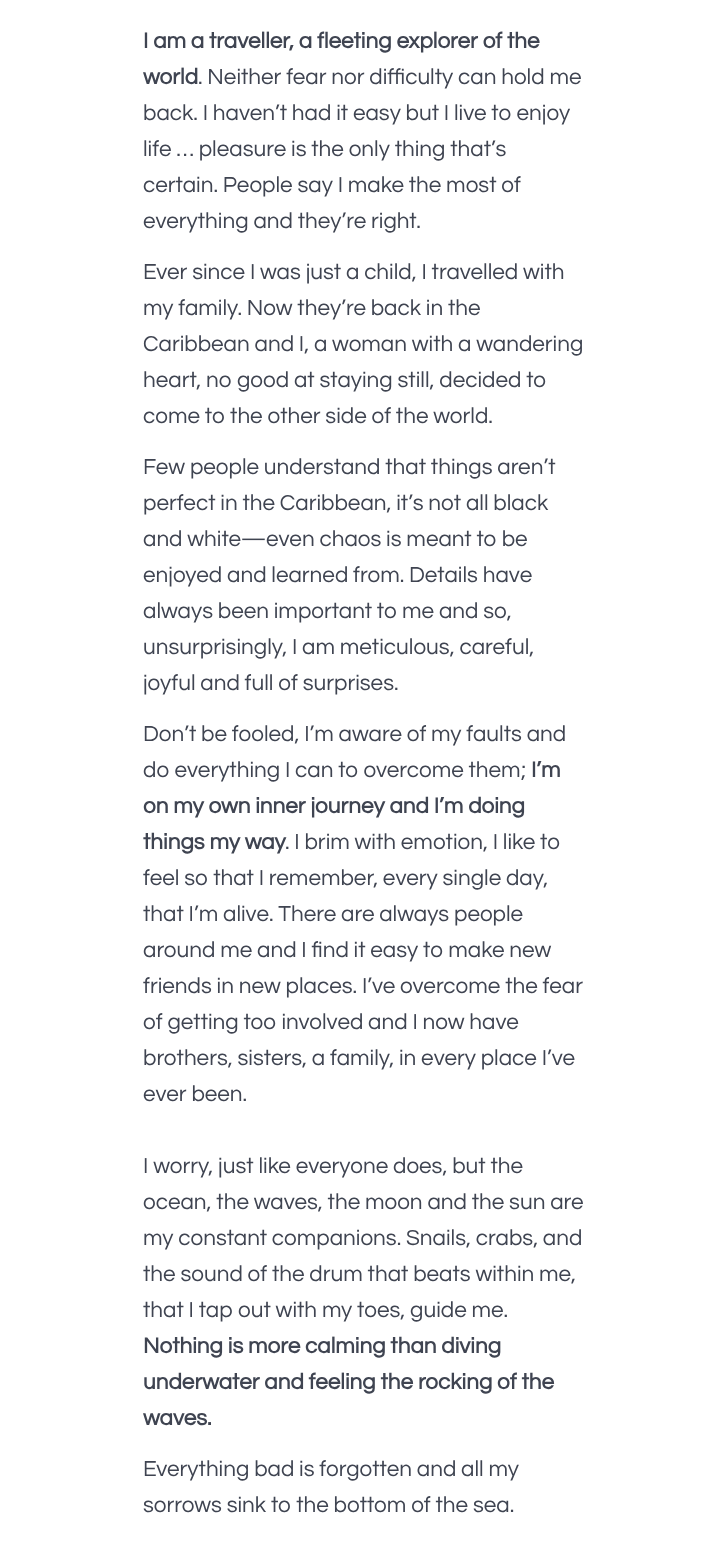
async function draw(canvas) {
  canvas.width = 725
  canvas.height = 1547
  const ctx = canvas.getContext('2d')
  ctx.miterLimit = 4
  ctx.fontKerning = 'normal'

  ctx.fillStyle = '#fff'
  ctx.fillRect(0, 0, 725, 1547)
  ctx.font = 'bold 22.5px Questrial'
  ctx.fillStyle = '#3f4451'
  ctx.fillText('I am a traveller, a fleeting explorer of the', 143, 48)
  ctx.fillText('world', 143, 84)
  ctx.font = '22.5px Questrial'
  ctx.fillText('. Neither fear nor difficulty can hold me', 198, 84)
  ctx.fillText('back. I haven’t had it easy but I live to enjoy', 143, 120)
  ctx.fillText('life … pleasure is the only thing that’s', 143, 156)
  ctx.fillText('certain. People say I make the most of', 143, 192)
  ctx.fillText('everything and they’re right.', 143, 228)
  ctx.fillText('Ever since I was just a child, I travelled with', 143, 279)
  ctx.fillText('my family. Now they’re back in the', 143, 315)
  ctx.fillText('Caribbean and I, a woman with a wandering', 143, 351)
  ctx.fillText('heart, no good at staying still, decided to', 143, 387)
  ctx.fillText('come to the other side of the world.', 143, 423)
  ctx.fillText('Few people understand that things aren’t', 143, 474)
  ctx.fillText('perfect in the Caribbean, it’s not all black', 143, 510)
  ctx.fillText('and white—even chaos is meant to be', 143, 546)
  ctx.fillText('enjoyed and learned from. Details have', 143, 582)
  ctx.fillText('always been important to me and so,', 143, 618)
  ctx.fillText('unsurprisingly, I am meticulous, careful,', 143, 654)
  ctx.fillText('joyful and full of surprises.', 143, 690)
  ctx.fillText('Don’t be fooled, I’m aware of my faults and', 143, 741)
  ctx.fillText('do everything I can to overcome them;', 143, 777)
  ctx.font = 'bold 22.5px Questrial'
  ctx.fillText('I’m', 531, 777)
  ctx.fillText('on my own inner journey and I’m doing', 143, 813)
  ctx.fillText('things my way', 143, 849)
  ctx.font = '22.5px Questrial'
  ctx.fillText('. I brim with emotion, I like to', 285, 849)
  ctx.fillText('feel so that I remember, every single day,', 143, 885)
  ctx.fillText('that I’m alive. There are always people', 143, 921)
  ctx.fillText('around me and I find it easy to make new', 143, 957)
  ctx.fillText('friends in new places. I’ve overcome the fear', 143, 993)
  ctx.fillText('of getting too involved and I now have', 143, 1029)
  ctx.fillText('brothers, sisters, a family, in every place I’ve', 143, 1065)
  ctx.fillText('ever been.', 143, 1101)
  ctx.fillText('I worry, just like everyone does, but the', 143, 1173)
  ctx.fillText('ocean, the waves, the moon and the sun are', 143, 1209)
  ctx.fillText('my constant companions. Snails, crabs, and', 143, 1245)
  ctx.fillText('the sound of the drum that beats within me,', 143, 1281)
  ctx.fillText('that I tap out with my toes, guide me.', 143, 1317)
  ctx.font = 'bold 22.5px Questrial'
  ctx.fillText('Nothing is more calming than diving', 143, 1353)
  ctx.fillText('underwater and feeling the rocking of the', 143, 1389)
  ctx.fillText('waves.', 143, 1425)
  ctx.font = '22.5px Questrial'
  ctx.fillText('Everything bad is forgotten and all my', 143, 1476)
  ctx.fillText('sorrows sink to the bottom of the sea.', 143, 1512)
}

draw(document.querySelector('canvas'))
